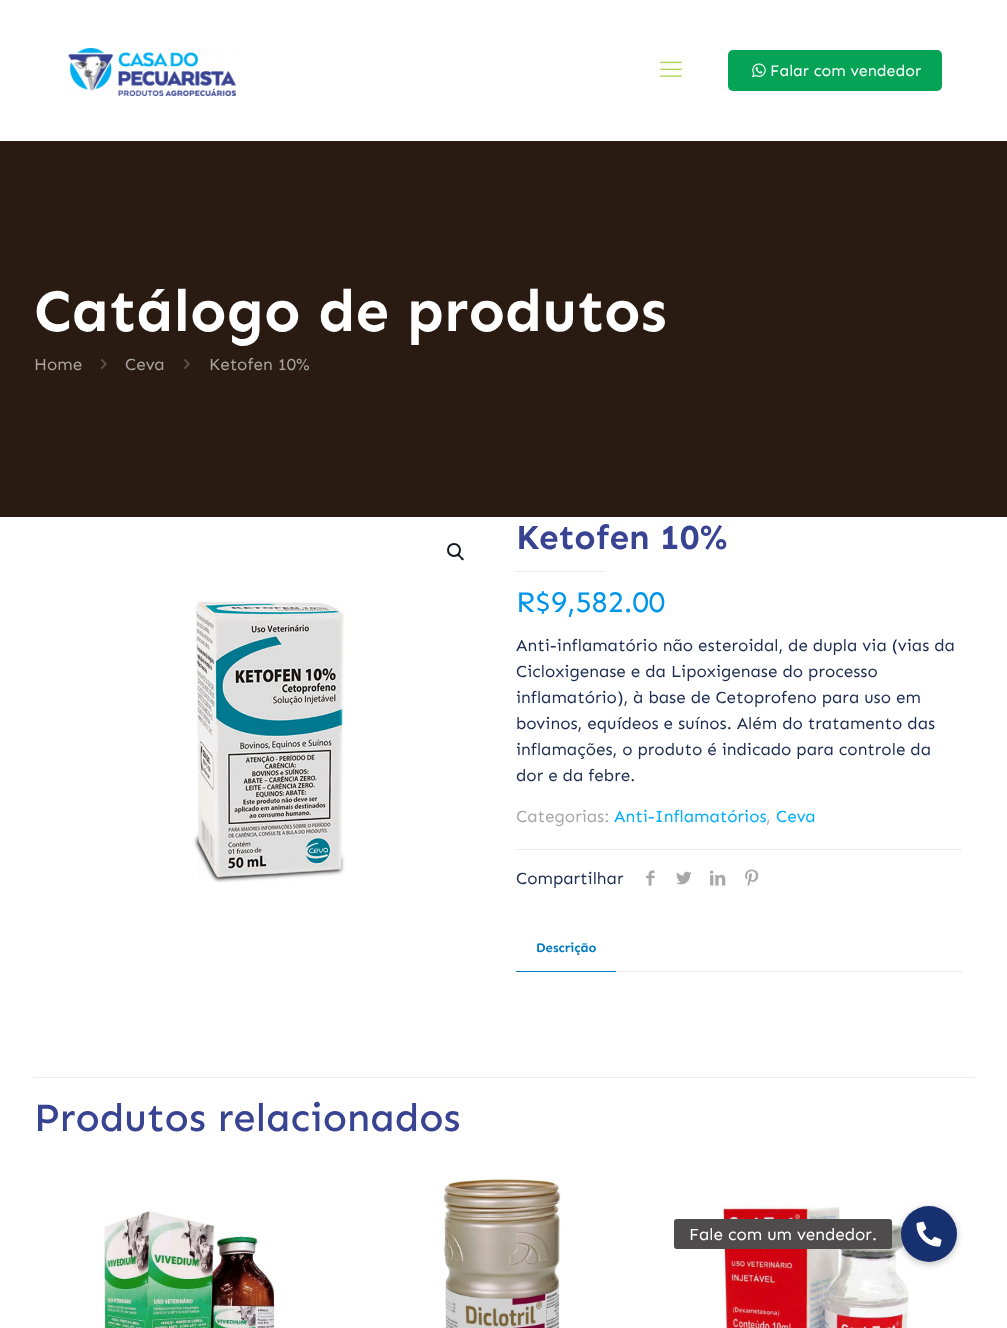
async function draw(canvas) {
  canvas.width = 1007
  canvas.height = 1328
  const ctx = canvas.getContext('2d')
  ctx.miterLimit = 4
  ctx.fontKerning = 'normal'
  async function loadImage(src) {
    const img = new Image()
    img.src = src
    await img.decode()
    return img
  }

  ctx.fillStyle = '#fff'
  ctx.fillRect(0, 0, 1007, 1328)
  ctx.drawImage(await loadImage('image0.png'), 68, 48, 168, 48)
  ctx.drawImage(await loadImage('image1.png'), 660, 61, 22, 16)
  ctx.fillStyle = '#05a356'
  ctx.beginPath()
  ctx.roundRect(728, 50, 214, 41, 5)
  ctx.fill()
  ctx.drawImage(await loadImage('image2.png'), 752, 63, 14, 15)
  ctx.font = '16px Sen'
  ctx.fillStyle = '#fff'
  ctx.fillText('Falar com vendedor', 770, 76)
  ctx.fillStyle = '#291b11'
  ctx.fillRect(0, 141, 1007, 376)
  ctx.font = 'bold 60px Sen'
  ctx.fillStyle = '#fff'
  ctx.fillText('Catálogo de produtos', 34, 331)
  ctx.font = '17px Sen'
  ctx.fillStyle = '#a9a4a0'
  ctx.fillText('Home', 34, 370)
  ctx.drawImage(await loadImage('image3.png'), 101, 359, 6, 10)
  ctx.fillText('Ceva', 125, 370)
  ctx.drawImage(await loadImage('image3.png'), 184, 359, 6, 10)
  ctx.fillText('Ketofen 10%', 209, 370)
  ctx.beginPath()
  ctx.arc(454, 550, 6, 0, 2 * Math.PI)
  ctx.strokeStyle = '#161922'
  ctx.lineWidth = 2
  ctx.stroke()
  ctx.fillStyle = '#161922'
  ctx.beginPath()
  ctx.moveTo(457.5, 554)
  ctx.bezierCurveTo(459, 553, 460.5, 555.5, 461, 556.5)
  ctx.bezierCurveTo(462, 557, 464.5, 558.5, 463.5, 560)
  ctx.bezierCurveTo(462, 561, 460.5, 558.5, 460, 557.5)
  ctx.bezierCurveTo(459, 557, 456.5, 555.5, 457.5, 554)
  ctx.closePath()
  ctx.fill()
  ctx.drawImage(await loadImage('image4.png'), 194, 601, 151, 282)
  ctx.font = 'bold 35px Sen'
  ctx.fillStyle = '#384392'
  ctx.fillText('Ketofen 10%', 516, 549)
  ctx.fillStyle = '#ebebeb'
  ctx.fillRect(516, 571, 89, 1)
  ctx.font = '30px Sen'
  ctx.fillStyle = '#0095eb'
  ctx.fillText('R$9,582.00', 516, 612)
  ctx.font = '17px Sen'
  ctx.fillStyle = '#1e2d51'
  ctx.fillText('Anti-inflamatório não esteroidal, de dupla via (vias da', 516, 651)
  ctx.fillText('Cicloxigenase e da Lipoxigenase do processo', 516, 677)
  ctx.fillText('inflamatório), à base de Cetoprofeno para uso em', 516, 703)
  ctx.fillText('bovinos, equídeos e suínos. Além do tratamento das', 516, 729)
  ctx.fillText('inflamações, o produto é indicado para controle da', 516, 755)
  ctx.fillText('dor e da febre.', 516, 781)
  ctx.fillStyle = '#a8a8a8'
  ctx.fillText('Categorias:', 516, 822)
  ctx.fillStyle = '#00adff'
  ctx.fillText('Anti-Inflamatórios', 614, 822)
  ctx.fillStyle = '#a8a8a8'
  ctx.fillText(',', 766, 822)
  ctx.fillStyle = '#00adff'
  ctx.fillText('Ceva', 776, 822)
  ctx.fillStyle = '#ebebeb'
  ctx.fillRect(516, 849, 446, 1)
  ctx.fillStyle = '#1e2d51'
  ctx.fillText('Compartilhar', 516, 884)
  ctx.drawImage(await loadImage('image5.png'), 646, 870, 9, 16)
  ctx.drawImage(await loadImage('image6.png'), 676, 871, 16, 14)
  ctx.drawImage(await loadImage('image7.png'), 710, 870, 16, 16)
  ctx.drawImage(await loadImage('image8.png'), 745, 869, 14, 18)
  ctx.fillStyle = '#ebebeb'
  ctx.fillRect(616, 971, 346, 1)
  ctx.font = 'bold 13px Sen'
  ctx.fillStyle = '#007cc3'
  ctx.fillText('Descrição', 536, 952)
  ctx.fillRect(516, 971, 100, 1)
  ctx.fillStyle = '#ebebeb'
  ctx.fillRect(34, 1077, 940, 1)
  ctx.font = '500 40px Sen'
  ctx.fillStyle = '#384392'
  ctx.fillText('Produtos relacionados', 34, 1131)
  ctx.drawImage(await loadImage('image9.png'), 104, 1211, 171, 117)
  ctx.drawImage(await loadImage('image10.png'), 443, 1179, 118, 149)
  ctx.drawImage(await loadImage('image11.png'), 721, 1205, 188, 123)
  ctx.fillStyle = '#00000033'
  ctx.filter = 'blur(3px)'
  ctx.beginPath()
  ctx.roundRect(900, 1207, 58, 58, 29)
  ctx.fill()
  ctx.filter = 'none'
  ctx.fillStyle = '#173070'
  ctx.beginPath()
  ctx.arc(929, 1234, 28, 0, 2 * Math.PI)
  ctx.fill()
  ctx.fillStyle = '#4e4c4c'
  ctx.beginPath()
  ctx.roundRect(674, 1219, 218, 30, 3)
  ctx.fill()
  ctx.font = '17px Sen'
  ctx.fillStyle = '#fff'
  ctx.fillText('Fale com um vendedor.', 689, 1240)
  ctx.drawImage(await loadImage('image12.png'), 916, 1221, 26, 26)
}

draw(document.querySelector('canvas'))
